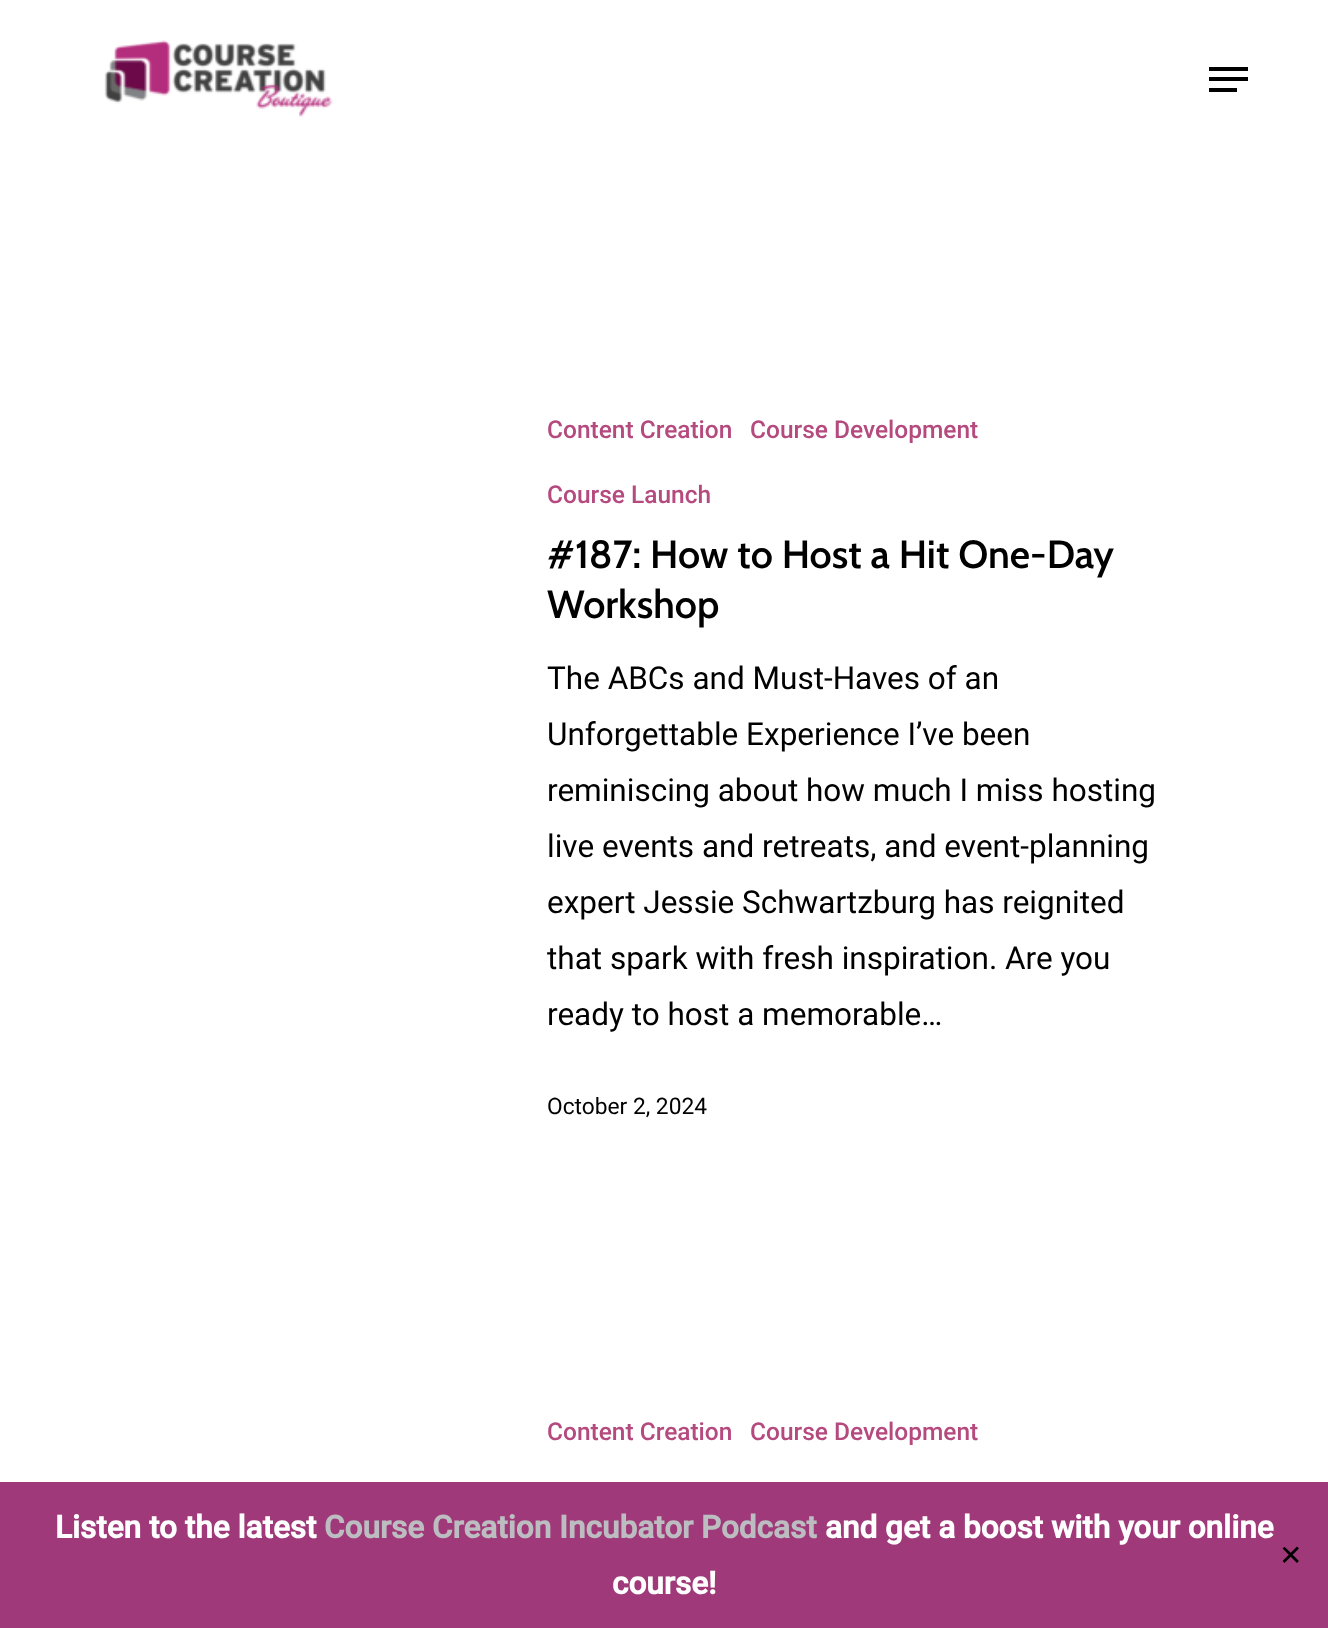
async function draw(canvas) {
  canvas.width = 1328
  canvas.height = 1628
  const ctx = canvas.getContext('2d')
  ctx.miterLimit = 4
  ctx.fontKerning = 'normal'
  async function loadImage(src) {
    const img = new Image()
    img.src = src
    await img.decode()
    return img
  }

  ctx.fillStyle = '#fff'
  ctx.fillRect(0, 0, 1328, 1628)
  ctx.drawImage(await loadImage('image0.png'), 104, 40, 229, 77)
  ctx.fillStyle = '#000'
  ctx.fillRect(1209, 67, 39, 4)
  ctx.fillRect(1209, 88, 28, 4)
  ctx.fillRect(1209, 77, 39, 4)
  ctx.font = '500 24.5px Roboto'
  ctx.fillStyle = '#b54a7f'
  ctx.fillText('Content Creation', 547, 438)
  ctx.fillText('Course Development', 750, 438)
  ctx.fillText('Course Launch', 547, 503)
  ctx.font = '600 39.4px Cabin'
  ctx.fillStyle = '#000'
  ctx.fillText('#187: How to Host a Hit One-Day', 547, 568)
  ctx.fillText('Workshop', 547, 618)
  ctx.font = '31.5px Roboto'
  ctx.fillText('The ABCs and Must-Haves of an', 547, 689)
  ctx.fillText('Unforgettable Experience I’ve been', 547, 745)
  ctx.fillText('reminiscing about how much I miss hosting', 547, 801)
  ctx.fillText('live events and retreats, and event-planning', 547, 857)
  ctx.fillText('expert Jessie Schwartzburg has reignited', 547, 913)
  ctx.fillText('that spark with fresh inspiration. Are you', 547, 969)
  ctx.fillText('ready to host a memorable…', 547, 1025)
  ctx.font = '22.75px Roboto'
  ctx.fillText('October 2, 2024', 547, 1114)
  ctx.font = '500 24.5px Roboto'
  ctx.fillStyle = '#b54a7f'
  ctx.fillText('Content Creation', 547, 1440)
  ctx.fillText('Course Development', 750, 1440)
  ctx.fillStyle = '#9f3979'
  ctx.fillRect(0, 1482, 1328, 146)
  ctx.font = 'bold 31.5px Roboto'
  ctx.fillStyle = '#fff'
  ctx.fillText('Listen to the latest', 55, 1538)
  ctx.fillStyle = '#bcbdc0'
  ctx.fillText('Course Creation Incubator Podcast', 324, 1538)
  ctx.fillStyle = '#fff'
  ctx.fillText('and get a boost with your online', 825, 1538)
  ctx.fillText('course!', 612, 1594)
  ctx.font = '28px DejaVu Sans'
  ctx.fillStyle = '#000'
  ctx.fillText('✕', 1279, 1565)
}

draw(document.querySelector('canvas'))
